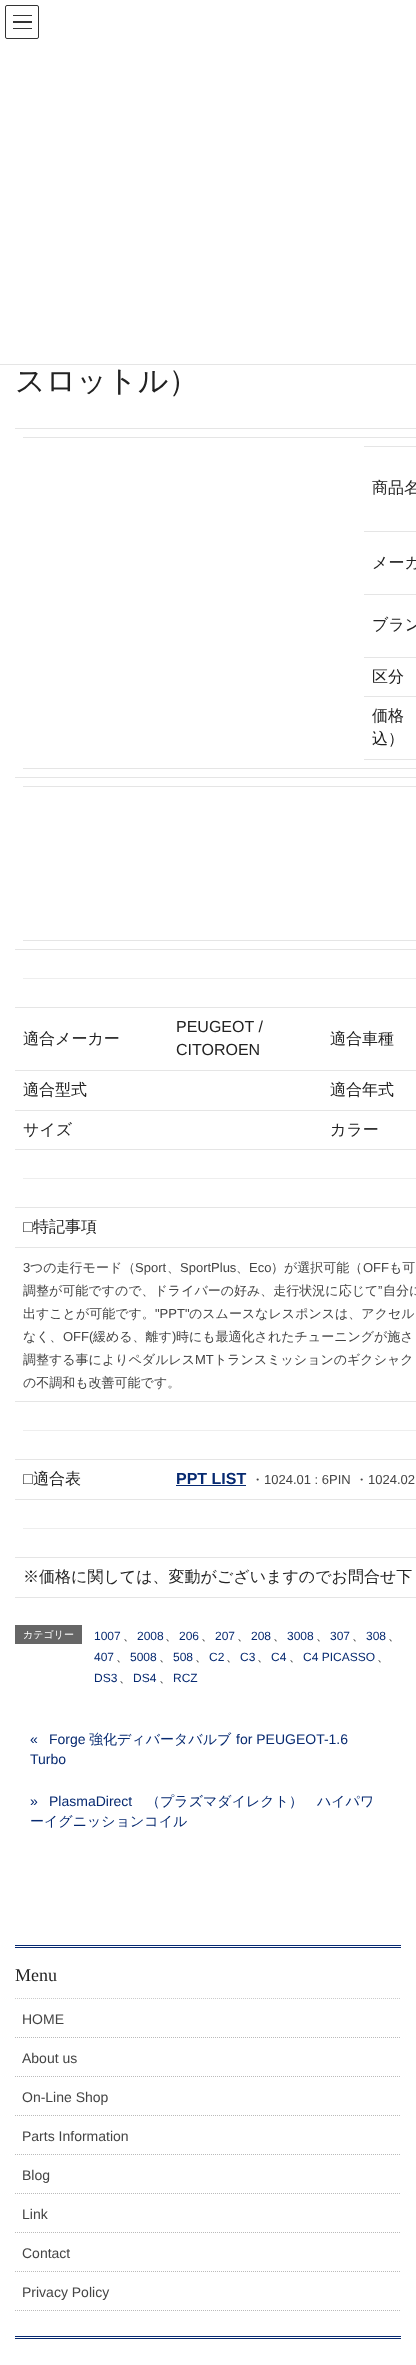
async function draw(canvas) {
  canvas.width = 416
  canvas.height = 2365
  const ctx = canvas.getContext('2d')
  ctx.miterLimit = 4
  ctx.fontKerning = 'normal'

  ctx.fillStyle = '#fff'
  ctx.fillRect(0, 0, 416, 2365)
  ctx.fillStyle = '#333'
  ctx.fillRect(13, 15, 19, 1)
  ctx.fillRect(13, 21, 19, 2)
  ctx.fillRect(13, 28, 19, 1)
  ctx.beginPath()
  ctx.roundRect(5.5, 5.5, 33, 33, 1.5)
  ctx.strokeStyle = '#333'
  ctx.stroke()
  ctx.fillStyle = '#e5e5e5'
  ctx.fillRect(0, 364, 416, 1)
  ctx.font = '500 30px WenQuanYi Zen Hei'
  ctx.fillStyle = '#222'
  ctx.fillText('スロットル）', 15, 391)
  ctx.fillStyle = '#e5e5e5'
  ctx.fillRect(15, 428, 401, 1)
  ctx.fillRect(15, 777, 401, 1)
  ctx.fillRect(23, 437, 393, 1)
  ctx.fillRect(23, 768, 393, 1)
  ctx.fillRect(364, 446, 52, 1)
  ctx.fillRect(364, 531, 52, 1)
  ctx.font = '500 16px WenQuanYi Zen Hei'
  ctx.fillStyle = '#222'
  ctx.fillText('商品名', 372, 493)
  ctx.fillStyle = '#e5e5e5'
  ctx.fillRect(364, 594, 52, 1)
  ctx.fillStyle = '#222'
  ctx.fillText('メーカ', 372, 568)
  ctx.fillStyle = '#e5e5e5'
  ctx.fillRect(364, 657, 52, 1)
  ctx.fillStyle = '#222'
  ctx.fillText('ブラン', 372, 630)
  ctx.fillStyle = '#e5e5e5'
  ctx.fillRect(364, 696, 52, 1)
  ctx.fillStyle = '#222'
  ctx.fillText('区分', 372, 682)
  ctx.fillStyle = '#e5e5e5'
  ctx.fillRect(364, 759, 52, 1)
  ctx.fillStyle = '#222'
  ctx.fillText('価格', 372, 721)
  ctx.fillText('込）', 372, 744)
  ctx.fillStyle = '#e5e5e5'
  ctx.fillRect(15, 949, 401, 1)
  ctx.fillRect(23, 786, 393, 1)
  ctx.fillRect(23, 940, 393, 1)
  ctx.fillRect(15, 1007, 401, 1)
  ctx.fillStyle = '#eee'
  ctx.fillRect(23, 978, 393, 1)
  ctx.fillStyle = '#222'
  ctx.fillText('適合メーカー', 23, 1044)
  ctx.font = '16px Liberation Sans'
  ctx.fillText('PEUGEOT /', 176, 1032)
  ctx.fillText('CITOROEN', 176, 1055)
  ctx.fillStyle = '#e5e5e5'
  ctx.fillRect(15, 1070, 401, 1)
  ctx.font = '500 16px WenQuanYi Zen Hei'
  ctx.fillStyle = '#222'
  ctx.fillText('適合車種', 330, 1044)
  ctx.fillText('適合型式', 23, 1095)
  ctx.fillStyle = '#e5e5e5'
  ctx.fillRect(15, 1110, 401, 1)
  ctx.fillStyle = '#222'
  ctx.fillText('適合年式', 330, 1095)
  ctx.fillText('サイズ', 23, 1135)
  ctx.fillStyle = '#e5e5e5'
  ctx.fillRect(15, 1149, 401, 1)
  ctx.fillStyle = '#222'
  ctx.fillText('カラー', 330, 1135)
  ctx.fillStyle = '#e5e5e5'
  ctx.fillRect(15, 1207, 401, 1)
  ctx.fillStyle = '#eee'
  ctx.fillRect(23, 1178, 393, 1)
  ctx.fillStyle = '#e5e5e5'
  ctx.fillRect(15, 1247, 401, 1)
  ctx.font = '16px Liberation Sans'
  ctx.fillStyle = '#222'
  ctx.fillText('□', 23, 1232)
  ctx.font = '500 16px WenQuanYi Zen Hei'
  ctx.fillText('特記事項', 33, 1232)
  ctx.fillStyle = '#e5e5e5'
  ctx.fillRect(15, 1401, 401, 1)
  ctx.font = '13px Liberation Sans'
  ctx.fillStyle = '#444'
  ctx.fillText('3', 23, 1272)
  ctx.font = '500 13px WenQuanYi Zen Hei'
  ctx.fillText('つの走行モード（', 30, 1272)
  ctx.font = '13px Liberation Sans'
  ctx.fillText('Sport', 135, 1272)
  ctx.font = '500 13px WenQuanYi Zen Hei'
  ctx.fillText('、', 167, 1272)
  ctx.font = '13px Liberation Sans'
  ctx.fillText('SportPlus', 180, 1272)
  ctx.font = '500 13px WenQuanYi Zen Hei'
  ctx.fillText('、', 236, 1272)
  ctx.font = '13px Liberation Sans'
  ctx.fillText('Eco', 249, 1272)
  ctx.font = '500 13px WenQuanYi Zen Hei'
  ctx.fillText('）が選択可能（', 271, 1272)
  ctx.font = '13px Liberation Sans'
  ctx.fillText('OFF', 363, 1272)
  ctx.font = '500 13px WenQuanYi Zen Hei'
  ctx.fillText('も可', 389, 1272)
  ctx.fillText('調整が可能ですので、ドライバーの好み、走行状況に応じて', 23, 1295)
  ctx.font = '13px Liberation Sans'
  ctx.fillText('”', 378, 1295)
  ctx.font = '500 13px WenQuanYi Zen Hei'
  ctx.fillText('自分に', 383, 1295)
  ctx.fillText('出すことが可能です。', 23, 1318)
  ctx.font = '13px Liberation Sans'
  ctx.fillText('"PPT"', 155, 1318)
  ctx.font = '500 13px WenQuanYi Zen Hei'
  ctx.fillText('のスムースなレスポンスは、アクセル', 189, 1318)
  ctx.fillText('なく、', 23, 1341)
  ctx.font = '13px Liberation Sans'
  ctx.fillText('OFF(', 63, 1341)
  ctx.font = '500 13px WenQuanYi Zen Hei'
  ctx.fillText('緩める、離す', 93, 1341)
  ctx.font = '13px Liberation Sans'
  ctx.fillText(')', 172, 1341)
  ctx.font = '500 13px WenQuanYi Zen Hei'
  ctx.fillText('時にも最適化されたチューニングが施さ', 176, 1341)
  ctx.fillText('調整する事によりペダルレス', 23, 1364)
  ctx.font = '13px Liberation Sans'
  ctx.fillText('MT', 195, 1364)
  ctx.font = '500 13px WenQuanYi Zen Hei'
  ctx.fillText('トランスミッションのギクシャク', 214, 1364)
  ctx.fillText('の不調和も改善可能です。', 23, 1387)
  ctx.fillStyle = '#e5e5e5'
  ctx.fillRect(15, 1459, 401, 1)
  ctx.fillStyle = '#eee'
  ctx.fillRect(23, 1430, 393, 1)
  ctx.font = '16px Liberation Sans'
  ctx.fillStyle = '#222'
  ctx.fillText('□', 23, 1484)
  ctx.font = '500 16px WenQuanYi Zen Hei'
  ctx.fillText('適合表', 33, 1484)
  ctx.fillStyle = '#e5e5e5'
  ctx.fillRect(15, 1499, 401, 1)
  ctx.font = 'bold 16px Liberation Sans'
  ctx.fillStyle = '#062970'
  ctx.fillText('PPT LIST', 176, 1484)
  ctx.fillRect(176, 1485, 70, 1)
  ctx.font = '500 13px WenQuanYi Zen Hei'
  ctx.fillStyle = '#444'
  ctx.fillText('・', 251, 1484)
  ctx.font = '13px Liberation Sans'
  ctx.fillText('1024.01 : 6PIN', 264, 1484)
  ctx.font = '500 13px WenQuanYi Zen Hei'
  ctx.fillText('・', 355, 1484)
  ctx.font = '13px Liberation Sans'
  ctx.fillText('1024.02', 368, 1484)
  ctx.fillStyle = '#e5e5e5'
  ctx.fillRect(15, 1557, 401, 1)
  ctx.fillStyle = '#eee'
  ctx.fillRect(23, 1528, 393, 1)
  ctx.fillStyle = '#e5e5e5'
  ctx.fillRect(15, 1597, 401, 1)
  ctx.font = '500 16px WenQuanYi Zen Hei'
  ctx.fillStyle = '#222'
  ctx.fillText('※価格に関しては、変動がございますのでお問合せ下', 23, 1582)
  ctx.fillStyle = '#666'
  ctx.fillRect(15, 1625, 67, 19)
  ctx.font = '500 10px WenQuanYi Zen Hei'
  ctx.fillStyle = '#fff'
  ctx.fillText('カテゴリー', 23, 1638)
  ctx.font = '12px Liberation Sans'
  ctx.fillStyle = '#062970'
  ctx.fillText('1007', 94, 1640)
  ctx.font = '500 12px WenQuanYi Zen Hei'
  ctx.fillStyle = '#222'
  ctx.fillText('、', 123, 1640)
  ctx.font = '12px Liberation Sans'
  ctx.fillStyle = '#062970'
  ctx.fillText('2008', 137, 1640)
  ctx.font = '500 12px WenQuanYi Zen Hei'
  ctx.fillStyle = '#222'
  ctx.fillText('、', 165, 1640)
  ctx.font = '12px Liberation Sans'
  ctx.fillStyle = '#062970'
  ctx.fillText('206', 179, 1640)
  ctx.font = '500 12px WenQuanYi Zen Hei'
  ctx.fillStyle = '#222'
  ctx.fillText('、', 201, 1640)
  ctx.font = '12px Liberation Sans'
  ctx.fillStyle = '#062970'
  ctx.fillText('207', 215, 1640)
  ctx.font = '500 12px WenQuanYi Zen Hei'
  ctx.fillStyle = '#222'
  ctx.fillText('、', 237, 1640)
  ctx.font = '12px Liberation Sans'
  ctx.fillStyle = '#062970'
  ctx.fillText('208', 251, 1640)
  ctx.font = '500 12px WenQuanYi Zen Hei'
  ctx.fillStyle = '#222'
  ctx.fillText('、', 273, 1640)
  ctx.font = '12px Liberation Sans'
  ctx.fillStyle = '#062970'
  ctx.fillText('3008', 287, 1640)
  ctx.font = '500 12px WenQuanYi Zen Hei'
  ctx.fillStyle = '#222'
  ctx.fillText('、', 316, 1640)
  ctx.font = '12px Liberation Sans'
  ctx.fillStyle = '#062970'
  ctx.fillText('307', 330, 1640)
  ctx.font = '500 12px WenQuanYi Zen Hei'
  ctx.fillStyle = '#222'
  ctx.fillText('、', 352, 1640)
  ctx.font = '12px Liberation Sans'
  ctx.fillStyle = '#062970'
  ctx.fillText('308', 366, 1640)
  ctx.font = '500 12px WenQuanYi Zen Hei'
  ctx.fillStyle = '#222'
  ctx.fillText('、', 388, 1640)
  ctx.font = '12px Liberation Sans'
  ctx.fillStyle = '#062970'
  ctx.fillText('407', 94, 1661)
  ctx.font = '500 12px WenQuanYi Zen Hei'
  ctx.fillStyle = '#222'
  ctx.fillText('、', 116, 1661)
  ctx.font = '12px Liberation Sans'
  ctx.fillStyle = '#062970'
  ctx.fillText('5008', 130, 1661)
  ctx.font = '500 12px WenQuanYi Zen Hei'
  ctx.fillStyle = '#222'
  ctx.fillText('、', 159, 1661)
  ctx.font = '12px Liberation Sans'
  ctx.fillStyle = '#062970'
  ctx.fillText('508', 173, 1661)
  ctx.font = '500 12px WenQuanYi Zen Hei'
  ctx.fillStyle = '#222'
  ctx.fillText('、', 195, 1661)
  ctx.font = '12px Liberation Sans'
  ctx.fillStyle = '#062970'
  ctx.fillText('C2', 209, 1661)
  ctx.font = '500 12px WenQuanYi Zen Hei'
  ctx.fillStyle = '#222'
  ctx.fillText('、', 226, 1661)
  ctx.font = '12px Liberation Sans'
  ctx.fillStyle = '#062970'
  ctx.fillText('C3', 240, 1661)
  ctx.font = '500 12px WenQuanYi Zen Hei'
  ctx.fillStyle = '#222'
  ctx.fillText('、', 257, 1661)
  ctx.font = '12px Liberation Sans'
  ctx.fillStyle = '#062970'
  ctx.fillText('C4', 271, 1661)
  ctx.font = '500 12px WenQuanYi Zen Hei'
  ctx.fillStyle = '#222'
  ctx.fillText('、', 289, 1661)
  ctx.font = '12px Liberation Sans'
  ctx.fillStyle = '#062970'
  ctx.fillText('C4 PICASSO', 303, 1661)
  ctx.font = '500 12px WenQuanYi Zen Hei'
  ctx.fillStyle = '#222'
  ctx.fillText('、', 377, 1661)
  ctx.font = '12px Liberation Sans'
  ctx.fillStyle = '#062970'
  ctx.fillText('DS3', 94, 1682)
  ctx.font = '500 12px WenQuanYi Zen Hei'
  ctx.fillStyle = '#222'
  ctx.fillText('、', 119, 1682)
  ctx.font = '12px Liberation Sans'
  ctx.fillStyle = '#062970'
  ctx.fillText('DS4', 133, 1682)
  ctx.font = '500 12px WenQuanYi Zen Hei'
  ctx.fillStyle = '#222'
  ctx.fillText('、', 159, 1682)
  ctx.font = '12px Liberation Sans'
  ctx.fillStyle = '#062970'
  ctx.fillText('RCZ', 173, 1682)
  ctx.font = '14px Liberation Sans'
  ctx.fillText('«', 30, 1744)
  ctx.fillText('Forge', 49, 1744)
  ctx.font = '500 14px WenQuanYi Zen Hei'
  ctx.fillText('強化ディバータバルブ', 89, 1744)
  ctx.font = '14px Liberation Sans'
  ctx.fillText('for PEUGEOT-1.6', 236, 1744)
  ctx.fillText('Turbo', 30, 1764)
  ctx.fillText('»', 30, 1806)
  ctx.fillText('PlasmaDirect', 49, 1806)
  ctx.font = '500 14px WenQuanYi Zen Hei'
  ctx.fillText('（プラズマダイレクト）　ハイパワ', 146, 1806)
  ctx.fillText('ーイグニッションコイル', 30, 1826)
  ctx.fillRect(15, 1945, 386, 1)
  ctx.fillRect(15, 1947, 386, 1)
  ctx.beginPath()
  ctx.moveTo(15, 1998.5)
  ctx.lineTo(401, 1998.5)
  ctx.strokeStyle = '#ccc'
  ctx.setLineDash([1, 1])
  ctx.stroke()
  ctx.font = '18px Liberation Serif'
  ctx.fillStyle = '#222'
  ctx.fillText('Menu', 15, 1981)
  ctx.beginPath()
  ctx.moveTo(15, 2037.5)
  ctx.lineTo(401, 2037.5)
  ctx.strokeStyle = '#bbb'
  ctx.stroke()
  ctx.font = '14px Liberation Sans'
  ctx.fillStyle = '#444'
  ctx.fillText('HOME', 22, 2024)
  ctx.beginPath()
  ctx.moveTo(15, 2076.5)
  ctx.lineTo(401, 2076.5)
  ctx.stroke()
  ctx.fillText('About us', 22, 2063)
  ctx.beginPath()
  ctx.moveTo(15, 2115.5)
  ctx.lineTo(401, 2115.5)
  ctx.stroke()
  ctx.fillText('On-Line Shop', 22, 2102)
  ctx.beginPath()
  ctx.moveTo(15, 2154.5)
  ctx.lineTo(401, 2154.5)
  ctx.stroke()
  ctx.fillText('Parts Information', 22, 2141)
  ctx.beginPath()
  ctx.moveTo(15, 2193.5)
  ctx.lineTo(401, 2193.5)
  ctx.stroke()
  ctx.fillText('Blog', 22, 2180)
  ctx.beginPath()
  ctx.moveTo(15, 2232.5)
  ctx.lineTo(401, 2232.5)
  ctx.stroke()
  ctx.fillText('Link', 22, 2219)
  ctx.beginPath()
  ctx.moveTo(15, 2271.5)
  ctx.lineTo(401, 2271.5)
  ctx.stroke()
  ctx.fillText('Contact', 22, 2258)
  ctx.beginPath()
  ctx.moveTo(15, 2310.5)
  ctx.lineTo(401, 2310.5)
  ctx.stroke()
  ctx.fillText('Privacy Policy', 22, 2297)
  ctx.fillStyle = '#062970'
  ctx.fillRect(15, 2336, 386, 1)
  ctx.fillRect(15, 2338, 386, 1)
}

draw(document.querySelector('canvas'))
